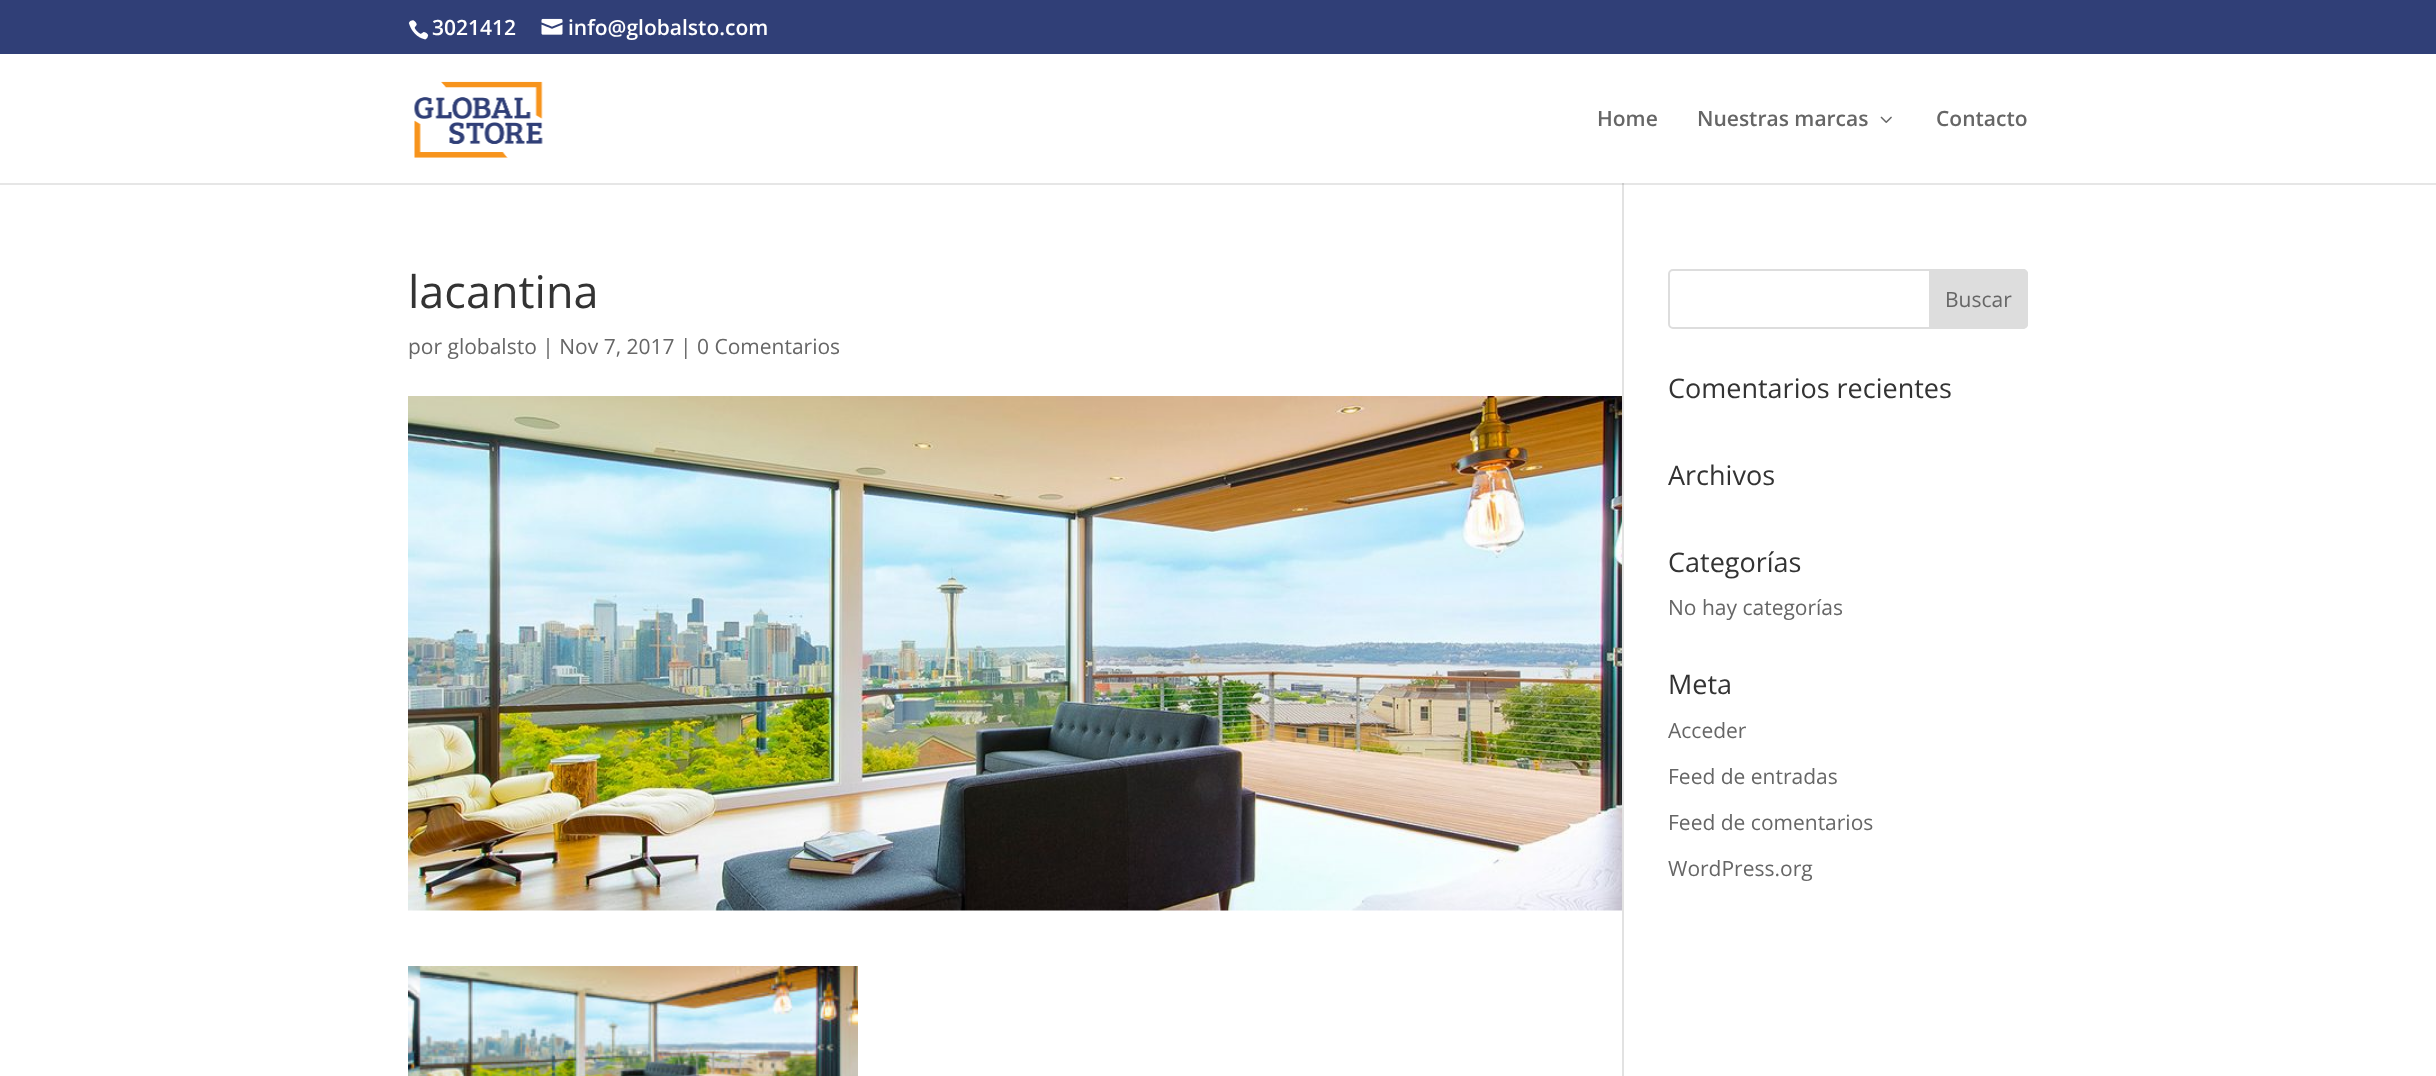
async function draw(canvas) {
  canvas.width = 2436
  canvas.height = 1076
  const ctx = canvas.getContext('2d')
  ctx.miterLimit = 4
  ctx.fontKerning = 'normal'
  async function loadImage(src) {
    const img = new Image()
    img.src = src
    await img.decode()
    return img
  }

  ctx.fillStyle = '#fff'
  ctx.fillRect(0, 0, 2436, 1076)
  ctx.fillStyle = '#e6e6e6'
  ctx.fillRect(0, 183, 2436, 2)
  ctx.fillStyle = '#303f77'
  ctx.fillRect(0, 0, 2436, 54)
  ctx.drawImage(await loadImage('image0.png'), 408, 20, 21, 20)
  ctx.font = '600 21px Open Sans'
  ctx.fillStyle = '#fff'
  ctx.fillText('3021412', 432, 35)
  ctx.drawImage(await loadImage('image1.png'), 541, 18, 22, 17)
  ctx.fillText('info@globalsto.com', 568, 35)
  ctx.fillStyle = '#e2e2e2'
  ctx.fillRect(1622, 182, 2, 894)
  ctx.fillStyle = '#fff'
  ctx.fillRect(1622, 182, 2, 1)
  ctx.drawImage(await loadImage('image2.png'), 414, 81, 129, 77)
  ctx.fillStyle = '#666'
  ctx.fillText('Home', 1597, 126)
  ctx.fillText('Nuestras marcas', 1697, 126)
  ctx.drawImage(await loadImage('image3.png'), 1880, 116, 12, 7)
  ctx.fillText('Contacto', 1936, 126)
  ctx.fillStyle = '#cbcbcb'
  ctx.fillRect(1622, 183, 2, 2)
  ctx.font = '45px Open Sans'
  ctx.fillStyle = '#333'
  ctx.fillText('lacantina', 408, 308)
  ctx.font = '21px Open Sans'
  ctx.fillStyle = '#666'
  ctx.fillText('por globalsto | Nov 7, 2017 | 0 Comentarios', 408, 354)
  ctx.drawImage(await loadImage('image4.png'), 408, 396, 1214, 515)
  ctx.drawImage(await loadImage('image5.png'), 408, 966, 450, 110)
  ctx.beginPath()
  ctx.roundRect(1669, 270, 358, 58, 4)
  ctx.strokeStyle = '#ddd'
  ctx.lineWidth = 2
  ctx.stroke()
  ctx.fillStyle = '#ddd'
  ctx.beginPath()
  ctx.roundRect(1930, 270, 97, 58, [0, 4, 4, 0])
  ctx.fill()
  ctx.stroke()
  ctx.fillStyle = '#666'
  ctx.fillText('Buscar', 1945, 307)
  ctx.font = '27px Open Sans'
  ctx.fillStyle = '#333'
  ctx.fillText('Comentarios recientes', 1668, 398)
  ctx.fillText('Archivos', 1668, 485)
  ctx.fillText('Categorías', 1668, 572)
  ctx.font = '21px Open Sans'
  ctx.fillStyle = '#666'
  ctx.fillText('No hay categorías', 1668, 615)
  ctx.font = '27px Open Sans'
  ctx.fillStyle = '#333'
  ctx.fillText('Meta', 1668, 694)
  ctx.font = '21px Open Sans'
  ctx.fillStyle = '#666'
  ctx.fillText('Acceder', 1668, 738)
  ctx.fillText('Feed de entradas', 1668, 784)
  ctx.fillText('Feed de comentarios', 1668, 830)
  ctx.fillText('WordPress.org', 1668, 876)
}

draw(document.querySelector('canvas'))
